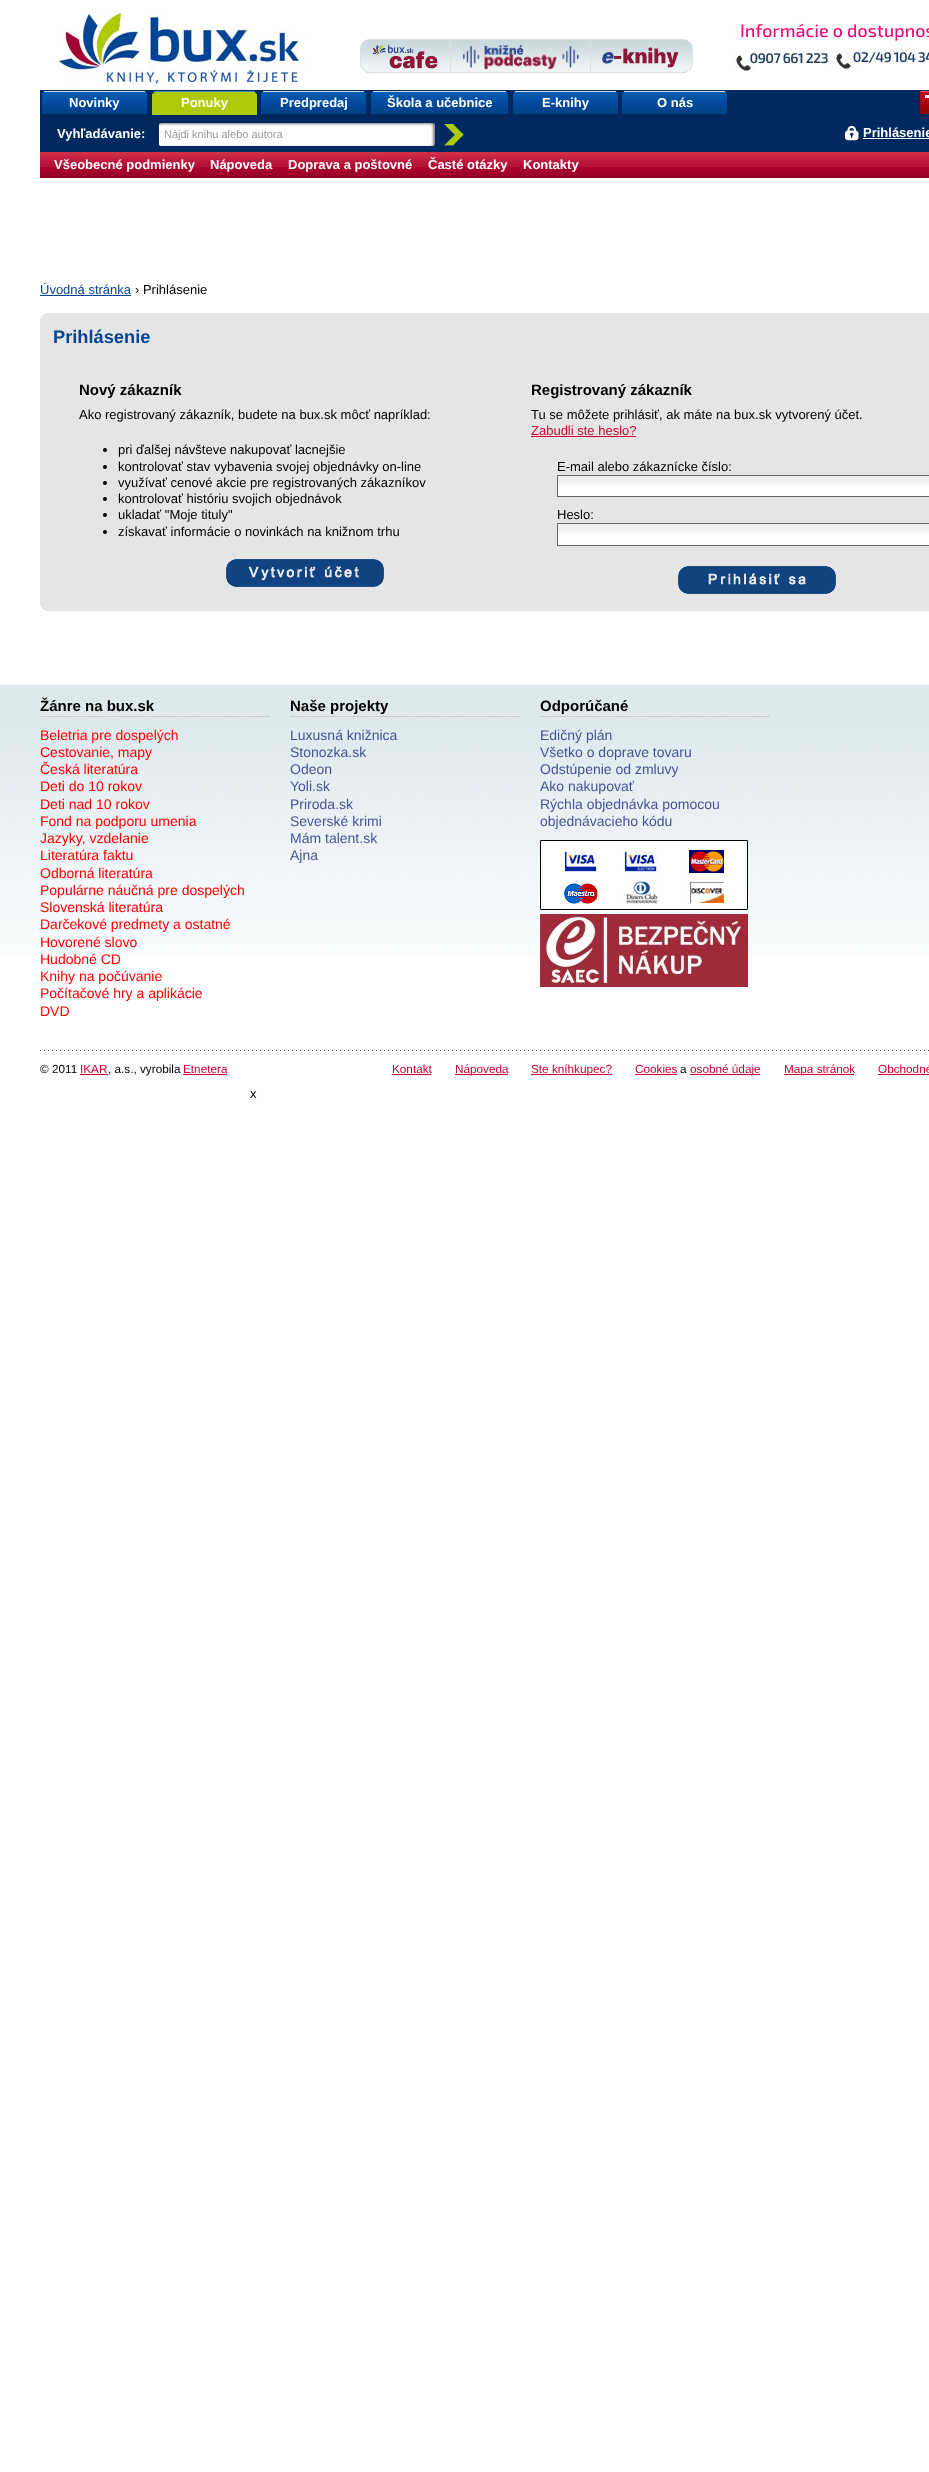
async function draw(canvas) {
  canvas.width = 929
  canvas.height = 2472
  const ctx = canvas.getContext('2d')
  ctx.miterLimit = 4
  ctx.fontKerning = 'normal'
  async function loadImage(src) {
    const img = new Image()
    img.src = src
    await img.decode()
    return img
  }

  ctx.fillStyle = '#fff'
  ctx.fillRect(0, 0, 929, 2472)
  ctx.drawImage(await loadImage('image0.png'), 50, 10, 256, 79)
  ctx.drawImage(await loadImage('image1.png'), 360, 40, 90, 33)
  ctx.beginPath()
  ctx.roundRect(360.5, 39.5, 90, 33, [9.5, 0, 0, 9.5])
  ctx.strokeStyle = '#dfdfdf'
  ctx.stroke()
  ctx.drawImage(await loadImage('image2.png'), 372, 44, 66, 25)
  ctx.drawImage(await loadImage('image3.png'), 451, 40, 139, 32)
  ctx.fillStyle = '#dfdfdf'
  ctx.fillRect(451, 39, 139, 1)
  ctx.fillRect(451, 72, 139, 1)
  ctx.drawImage(await loadImage('image4.png'), 463, 45, 117, 25)
  ctx.drawImage(await loadImage('image5.png'), 591, 40, 102, 33)
  ctx.beginPath()
  ctx.roundRect(590.5, 39.5, 102, 33, [0, 9.5, 9.5, 0])
  ctx.stroke()
  ctx.drawImage(await loadImage('image6.png'), 602, 47, 77, 21)
  ctx.drawImage(await loadImage('image7.png'), 734, 22, 195, 50)
  ctx.fillStyle = '#002960'
  ctx.fillRect(40, 90, 889, 62)
  ctx.drawImage(await loadImage('image8.png'), 42, 92, 105, 23)
  ctx.fillStyle = '#d1d1d1'
  ctx.fillRect(44, 91, 101, 1)
  ctx.font = 'bold 13px Liberation Sans'
  ctx.fillStyle = '#fff'
  ctx.fillText('Novinky', 69, 107)
  ctx.fillStyle = '#afc906'
  ctx.beginPath()
  ctx.moveTo(156, 92)
  ctx.lineTo(253, 92)
  ctx.bezierCurveTo(255, 92, 257, 93, 257, 95)
  ctx.lineTo(257, 115)
  ctx.lineTo(152, 115)
  ctx.lineTo(152, 95)
  ctx.bezierCurveTo(152, 93, 154, 92, 156, 92)
  ctx.closePath()
  ctx.fill()
  ctx.fillStyle = '#4c8ad5'
  ctx.fillRect(154, 91, 101, 1)
  ctx.fillStyle = '#fff'
  ctx.fillText('Ponuky', 181, 107)
  ctx.drawImage(await loadImage('image8.png'), 261, 92, 105, 23)
  ctx.fillStyle = '#d1d1d1'
  ctx.fillRect(263, 91, 101, 1)
  ctx.fillStyle = '#fff'
  ctx.fillText('Predpredaj', 280, 107)
  ctx.drawImage(await loadImage('image9.png'), 371, 92, 137, 23)
  ctx.fillStyle = '#d1d1d1'
  ctx.fillRect(373, 91, 133, 1)
  ctx.fillStyle = '#fff'
  ctx.fillText('Škola a učebnice', 387, 107)
  ctx.drawImage(await loadImage('image8.png'), 513, 92, 105, 23)
  ctx.fillStyle = '#d1d1d1'
  ctx.fillRect(515, 91, 101, 1)
  ctx.fillStyle = '#fff'
  ctx.fillText('E-knihy', 542, 107)
  ctx.drawImage(await loadImage('image8.png'), 622, 92, 105, 23)
  ctx.fillStyle = '#d1d1d1'
  ctx.fillRect(624, 91, 101, 1)
  ctx.fillStyle = '#fff'
  ctx.fillText('O nás', 657, 107)
  ctx.fillText('Vyhľadávanie:', 57, 138)
  ctx.drawImage(await loadImage('image10.png'), 159, 123, 276, 23)
  ctx.font = '11px Liberation Sans'
  ctx.fillStyle = '#999'
  ctx.fillText('Nájdi knihu alebo autora', 164, 138)
  ctx.drawImage(await loadImage('image11.png'), 444, 124, 20, 22)
  ctx.drawImage(await loadImage('image12.png'), 920, 91, 9, 23)
  ctx.drawImage(await loadImage('image13.png'), 920, 91, 2, 23)
  ctx.fillStyle = '#fff'
  ctx.fillRect(925, 95, 4, 3)
  ctx.drawImage(await loadImage('image14.png'), 845, 126, 14, 15)
  ctx.font = 'bold 13px Liberation Sans'
  ctx.fillText('Prihlásenie', 863, 137)
  ctx.fillRect(863, 138, 66, 1)
  ctx.drawImage(await loadImage('image15.png'), 40, 152, 889, 26)
  ctx.fillText('Všeobecné podmienky', 54, 169)
  ctx.fillText('Nápoveda', 210, 169)
  ctx.fillText('Doprava a poštovné', 288, 169)
  ctx.fillText('Časté otázky', 428, 169)
  ctx.fillText('Kontakty', 523, 169)
  ctx.font = '13px Liberation Sans'
  ctx.fillStyle = '#034694'
  ctx.fillText('Úvodná stránka', 40, 294)
  ctx.fillRect(40, 295, 91, 1)
  ctx.fillStyle = '#000'
  ctx.fillText('› Prihlásenie', 135, 294)
  ctx.fillStyle = '#e5e5e5'
  ctx.fillRect(40, 313, 889, 298)
  ctx.drawImage(await loadImage('image16.png'), 40, 605, 6, 6)
  ctx.drawImage(await loadImage('image17.png'), 40, 313, 6, 6)
  ctx.font = 'bold 18.25px Liberation Sans'
  ctx.fillStyle = '#034694'
  ctx.fillText('Prihlásenie', 53, 343)
  ctx.font = 'bold 15px Liberation Sans'
  ctx.fillStyle = '#000'
  ctx.fillText('Nový zákazník', 79, 395)
  ctx.font = '13px Liberation Sans'
  ctx.fillText('Ako registrovaný zákazník, budete na bux.sk môcť napríklad:', 79, 419)
  ctx.beginPath()
  ctx.arc(105, 450, 2, 0, 2 * Math.PI)
  ctx.fill()
  ctx.fillText('pri ďalšej návšteve nakupovať lacnejšie', 118, 454)
  ctx.beginPath()
  ctx.arc(105, 467, 2, 0, 2 * Math.PI)
  ctx.fill()
  ctx.fillText('kontrolovať stav vybavenia svojej objednávky on-line', 118, 471)
  ctx.beginPath()
  ctx.arc(105, 483, 2, 0, 2 * Math.PI)
  ctx.fill()
  ctx.fillText('využívať cenové akcie pre registrovaných zákazníkov', 118, 487)
  ctx.beginPath()
  ctx.arc(105, 499, 2, 0, 2 * Math.PI)
  ctx.fill()
  ctx.fillText('kontrolovať históriu svojich objednávok', 118, 503)
  ctx.beginPath()
  ctx.arc(105, 515, 2, 0, 2 * Math.PI)
  ctx.fill()
  ctx.fillText('ukladať "Moje tituly"', 118, 519)
  ctx.beginPath()
  ctx.arc(105, 532, 2, 0, 2 * Math.PI)
  ctx.fill()
  ctx.fillText('získavať informácie o novinkách na knižnom trhu', 118, 536)
  ctx.drawImage(await loadImage('image18.png'), 226, 559, 158, 28)
  ctx.font = 'bold 15px Liberation Sans'
  ctx.fillText('Registrovaný zákazník', 531, 395)
  ctx.font = '13px Liberation Sans'
  ctx.fillText('Tu se môžete prihlásiť, ak máte na bux.sk vytvorený účet.', 531, 419)
  ctx.fillStyle = '#c03'
  ctx.fillText('Zabudli ste heslo?', 531, 435)
  ctx.fillRect(531, 436, 105, 1)
  ctx.fillStyle = '#000'
  ctx.fillText('E-mail alebo zákaznícke číslo:', 557, 471)
  ctx.fillStyle = '#fff'
  ctx.fillRect(558, 486, 371, 10)
  ctx.drawImage(await loadImage('image19.png'), 558, 476, 371, 10)
  ctx.strokeStyle = '#666'
  ctx.strokeRect(557.5, 475.5, 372, 21)
  ctx.fillStyle = '#000'
  ctx.fillText('Heslo:', 557, 519)
  ctx.fillStyle = '#fff'
  ctx.fillRect(558, 534, 371, 11)
  ctx.drawImage(await loadImage('image19.png'), 558, 524, 371, 10)
  ctx.strokeRect(557.5, 523.5, 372, 22)
  ctx.drawImage(await loadImage('image20.png'), 678, 566, 158, 28)
  ctx.drawImage(await loadImage('image21.png'), 0, 685, 929, 273)
  ctx.fillStyle = '#ccc'
  ctx.fillRect(40, 716, 230, 1)
  ctx.font = 'bold 15px Liberation Sans'
  ctx.fillStyle = '#000'
  ctx.fillText('Žánre na bux.sk', 40, 711)
  ctx.font = '14px Liberation Sans'
  ctx.fillStyle = '#f00'
  ctx.fillText('Beletria pre dospelých', 40, 740)
  ctx.fillText('Cestovanie, mapy', 40, 757)
  ctx.fillText('Česká literatúra', 40, 774)
  ctx.fillText('Deti do 10 rokov', 40, 791)
  ctx.fillText('Deti nad 10 rokov', 40, 809)
  ctx.fillText('Fond na podporu umenia', 40, 826)
  ctx.fillText('Jazyky, vzdelanie', 40, 843)
  ctx.fillText('Literatúra faktu', 40, 860)
  ctx.fillText('Odborná literatúra', 40, 878)
  ctx.fillText('Populárne náučná pre dospelých', 40, 895)
  ctx.fillText('Slovenská literatúra', 40, 912)
  ctx.fillText('Darčekové predmety a ostatné', 40, 929)
  ctx.fillText('Hovorené slovo', 40, 947)
  ctx.fillText('Hudobné CD', 40, 964)
  ctx.fillText('Knihy na počúvanie', 40, 981)
  ctx.fillText('Počítačové hry a aplikácie', 40, 998)
  ctx.fillText('DVD', 40, 1016)
  ctx.fillStyle = '#ccc'
  ctx.fillRect(290, 716, 230, 1)
  ctx.font = 'bold 15px Liberation Sans'
  ctx.fillStyle = '#000'
  ctx.fillText('Naše projekty', 290, 711)
  ctx.font = '14px Liberation Sans'
  ctx.fillStyle = '#455497'
  ctx.fillText('Luxusná knižnica', 290, 740)
  ctx.fillText('Stonozka.sk', 290, 757)
  ctx.fillText('Odeon', 290, 774)
  ctx.fillText('Yoli.sk', 290, 791)
  ctx.fillText('Priroda.sk', 290, 809)
  ctx.fillText('Severské krimi', 290, 826)
  ctx.fillText('Mám talent.sk', 290, 843)
  ctx.fillText('Ajna', 290, 860)
  ctx.fillStyle = '#ccc'
  ctx.fillRect(540, 716, 230, 1)
  ctx.font = 'bold 15px Liberation Sans'
  ctx.fillStyle = '#000'
  ctx.fillText('Odporúčané', 540, 711)
  ctx.font = '14px Liberation Sans'
  ctx.fillStyle = '#455497'
  ctx.fillText('Edičný plán', 540, 740)
  ctx.fillText('Všetko o doprave tovaru', 540, 757)
  ctx.fillText('Odstúpenie od zmluvy', 540, 774)
  ctx.fillText('Ako nakupovať', 540, 791)
  ctx.fillText('Rýchla objednávka pomocou', 540, 809)
  ctx.fillText('objednávacieho kódu', 540, 826)
  ctx.drawImage(await loadImage('image22.png'), 540, 840, 208, 70)
  ctx.drawImage(await loadImage('image23.png'), 540, 914, 208, 73)
  ctx.drawImage(await loadImage('image24.png'), 40, 1050, 889, 1)
  ctx.font = '11.75px Liberation Sans'
  ctx.fillStyle = '#000'
  ctx.fillText('© 2011', 40, 1073)
  ctx.fillStyle = '#c03'
  ctx.fillText('IKAR', 80, 1073)
  ctx.fillRect(80, 1074, 28, 1)
  ctx.fillStyle = '#000'
  ctx.fillText(', a.s., vyrobila', 108, 1073)
  ctx.fillStyle = '#c03'
  ctx.fillText('Etnetera', 183, 1073)
  ctx.fillRect(183, 1074, 44, 1)
  ctx.fillText('Kontakt', 392, 1073)
  ctx.fillRect(392, 1074, 39, 1)
  ctx.fillRect(455, 1074, 53, 1)
  ctx.fillText('Nápoveda', 455, 1073)
  ctx.fillRect(531, 1074, 81, 1)
  ctx.fillText('Ste kníhkupec?', 531, 1073)
  ctx.fillText('Cookies', 635, 1073)
  ctx.fillRect(635, 1074, 42, 1)
  ctx.fillStyle = '#000'
  ctx.fillText('a', 680, 1073)
  ctx.fillStyle = '#c03'
  ctx.fillRect(690, 1074, 70, 1)
  ctx.fillText('osobné údaje', 690, 1073)
  ctx.fillRect(784, 1074, 70, 1)
  ctx.fillText('Mapa stránok', 784, 1073)
  ctx.fillText('Obchodné', 878, 1073)
  ctx.fillRect(878, 1074, 51, 1)
  ctx.font = '13px Liberation Sans'
  ctx.fillStyle = '#000'
  ctx.fillText('x', 250, 1098)
}

draw(document.querySelector('canvas'))
